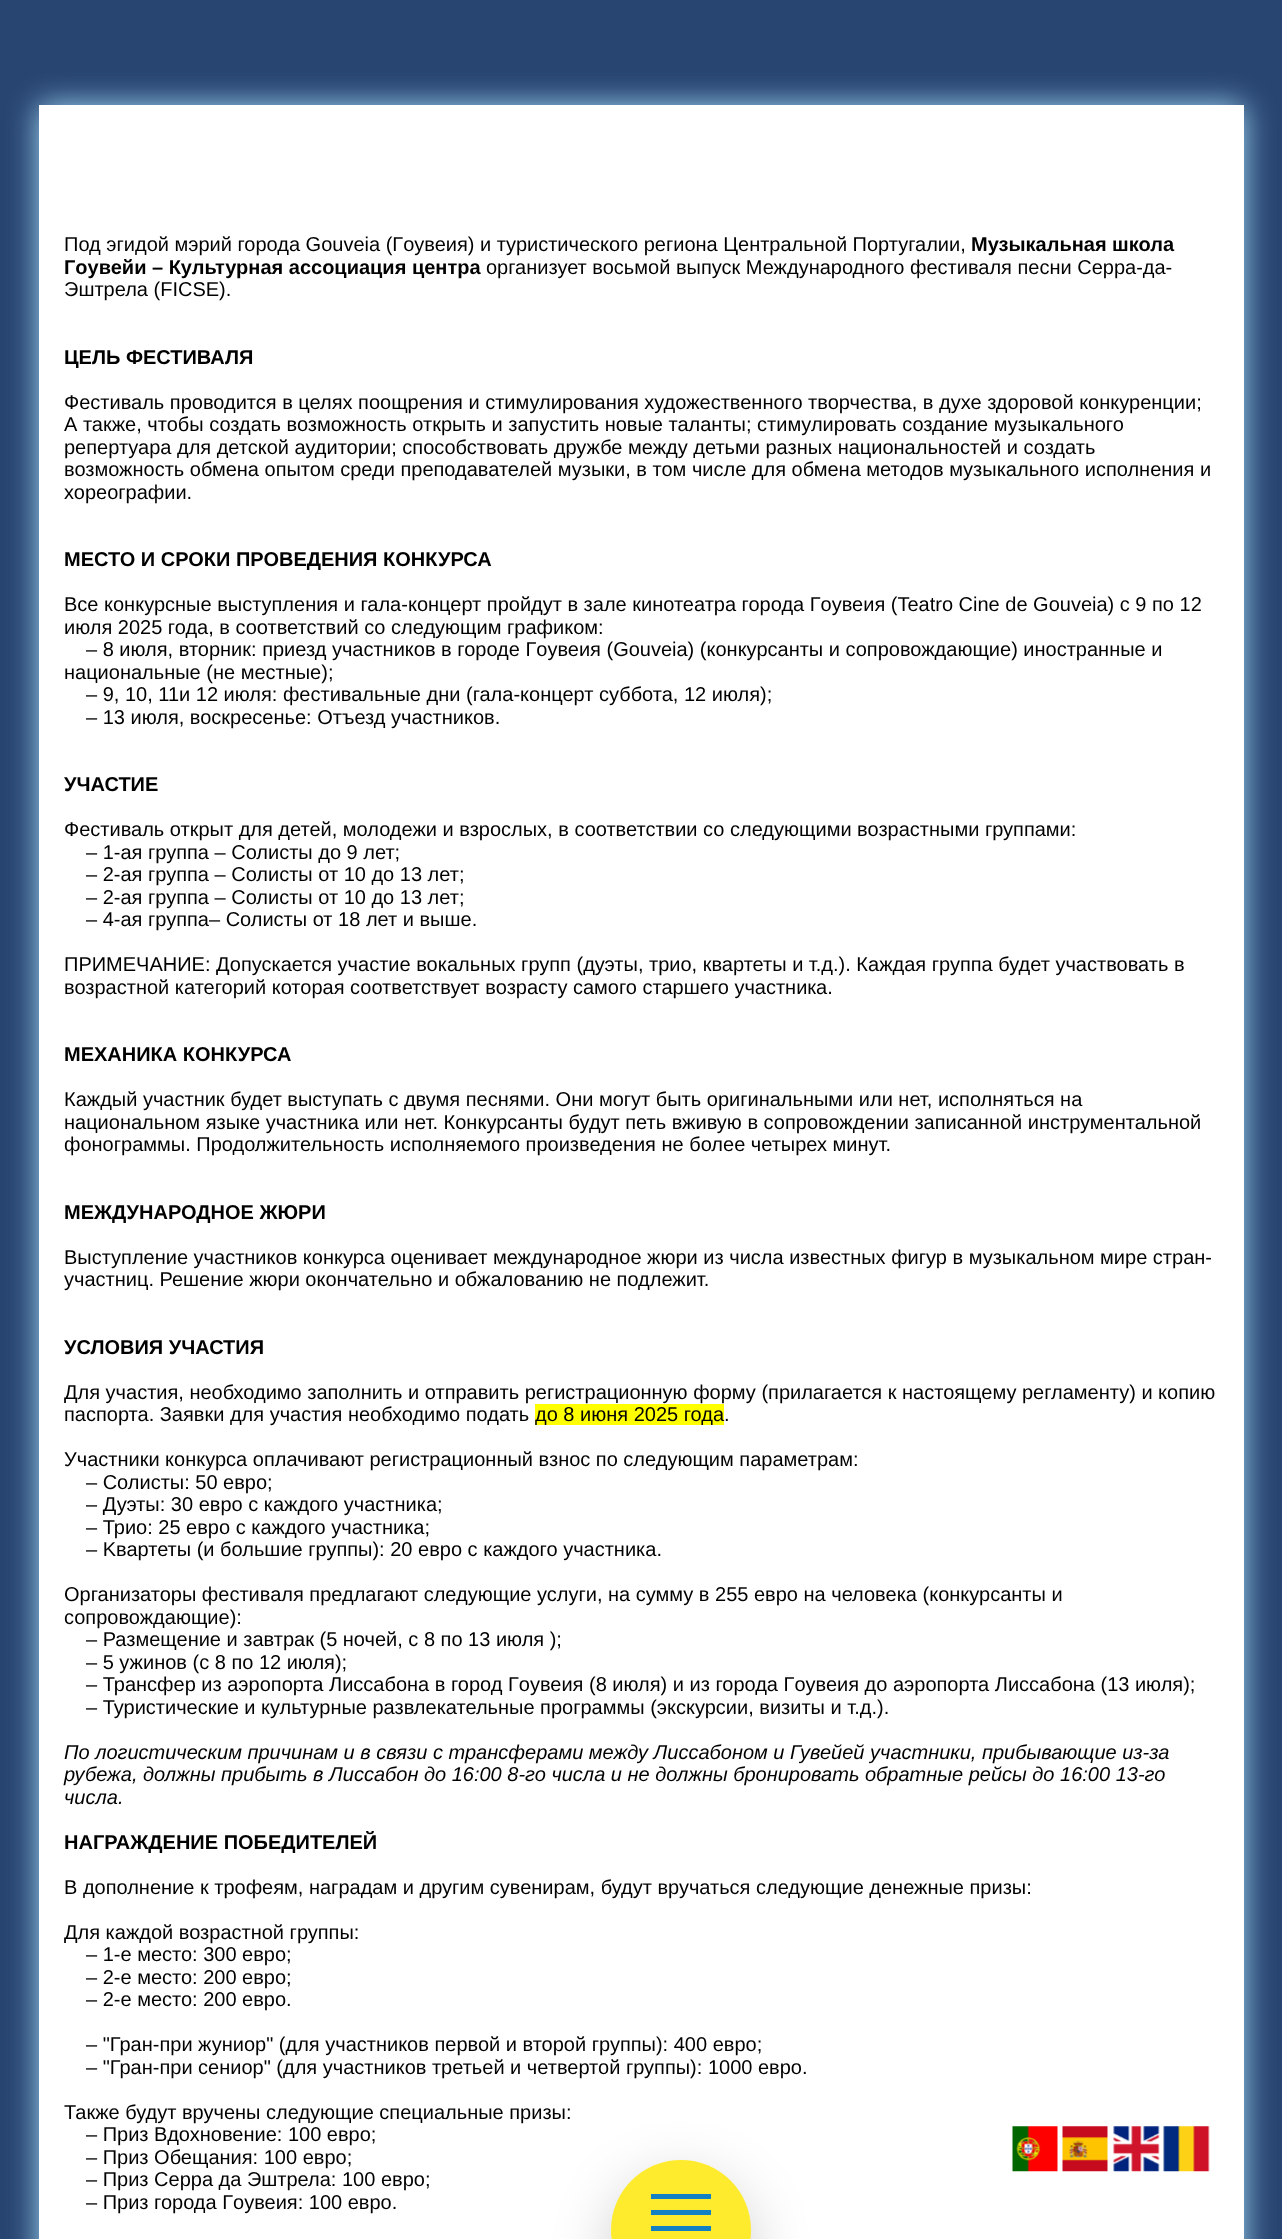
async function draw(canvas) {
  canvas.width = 1282
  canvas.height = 2239
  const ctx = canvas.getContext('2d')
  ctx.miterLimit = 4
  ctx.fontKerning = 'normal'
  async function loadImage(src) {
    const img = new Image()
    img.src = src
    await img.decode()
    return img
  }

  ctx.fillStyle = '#284571'
  ctx.fillRect(0, 0, 1282, 2239)
  ctx.fillStyle = '#a2d9f7'
  ctx.filter = 'blur(15.5px)'
  ctx.beginPath()
  ctx.rect(39, 105, 1205, 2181)
  ctx.fill()
  ctx.filter = 'none'
  ctx.fillStyle = '#fff'
  ctx.fillRect(39, 105, 1205, 2134)
  ctx.font = '20px Liberation Sans'
  ctx.fillStyle = '#000'
  ctx.fillText('Под эгидой мэрий города Gouveia (Гoувеия) и туристического региона Центральной Португалии,', 64, 251)
  ctx.font = 'bold 20px Liberation Sans'
  ctx.fillText('Музыкальная школа', 971, 251)
  ctx.fillText('Гoувейи – Культурная ассоциация центра', 64, 274)
  ctx.font = '20px Liberation Sans'
  ctx.fillText('организует восьмой выпуск Международного фестиваля песни Серра-да-', 486, 274)
  ctx.fillText('Эштрела (FICSE).', 64, 296)
  ctx.font = 'bold 20px Liberation Sans'
  ctx.fillText('ЦЕЛЬ ФЕСТИВАЛЯ', 64, 364)
  ctx.font = '20px Liberation Sans'
  ctx.fillText('Фестиваль проводится в целях поощрения и стимулирования художественного творчества, в духе здоровой конкуренции;', 64, 409)
  ctx.fillText('А также, чтобы создать возможность открыть и запустить новые таланты; стимулировать создание музыкального', 64, 431)
  ctx.fillText('репертуара для детской аудитории; способствовать дружбе между детьми разных национальностей и создать', 64, 454)
  ctx.fillText('возможность обмена опытом среди преподавателей музыки, в том числе для обмена методов музыкального исполнения и', 64, 476)
  ctx.fillText('хореографии.', 64, 499)
  ctx.font = 'bold 20px Liberation Sans'
  ctx.fillText('МЕСТО И СРОКИ ПРОВЕДЕНИЯ КОНКУРСА', 64, 566)
  ctx.font = '20px Liberation Sans'
  ctx.fillText('Все конкурсные выступления и гала-концерт пройдут в зале кинотеатра города Гoувеия (Teatro Cine de Gouveia) с 9 по 12', 64, 611)
  ctx.fillText('июля 2025 года, в соответствий со следующим графиком:', 64, 634)
  ctx.fillText('– 8 июля, вторник: приезд участников в городе Гoувеия (Gouveia) (конкурсанты и сопровождающие) иностранные и', 86, 656)
  ctx.fillText('национальные (не местные);', 64, 679)
  ctx.fillText('– 9, 10, 11и 12 июля: фестивальные дни (гала-концерт суббота, 12 июля);', 86, 701)
  ctx.fillText('– 13 июля, воскресенье: Отъезд участников.', 86, 724)
  ctx.font = 'bold 20px Liberation Sans'
  ctx.fillText('УЧАСТИЕ', 64, 791)
  ctx.font = '20px Liberation Sans'
  ctx.fillText('Фестиваль открыт для детей, молодежи и взрослых, в соответствии со следующими возрастными группами:', 64, 836)
  ctx.fillText('– 1-ая группа – Солисты до 9 лет;', 86, 859)
  ctx.fillText('– 2-ая группа – Солисты от 10 до 13 лет;', 86, 881)
  ctx.fillText('– 2-ая группа – Солисты от 10 до 13 лет;', 86, 904)
  ctx.fillText('– 4-ая группа– Солисты от 18 лет и выше.', 86, 926)
  ctx.fillText('ПРИМЕЧАНИЕ: Допускается участие вокальных групп (дуэты, трио, квартеты и т.д.). Каждая группа будет участвовать в', 64, 971)
  ctx.fillText('возрастной категорий которая соответствует возрасту самого старшего участникa.', 64, 994)
  ctx.font = 'bold 20px Liberation Sans'
  ctx.fillText('МЕХАНИКА КОНКУРСА', 64, 1061)
  ctx.font = '20px Liberation Sans'
  ctx.fillText('Каждый участник будет выступать с двумя песнями. Они могут быть оригинальными или нет, исполняться на', 64, 1106)
  ctx.fillText('национальном языке участника или нет. Конкурсанты будут петь вживую в сопровождении записанной инструментальной', 64, 1129)
  ctx.fillText('фонограммы. Продолжительность исполняемого произведения не более четырех минут.', 64, 1151)
  ctx.font = 'bold 20px Liberation Sans'
  ctx.fillText('МЕЖДУНАРОДНОЕ ЖЮРИ', 64, 1219)
  ctx.font = '20px Liberation Sans'
  ctx.fillText('Выступление участников конкурса оценивает международное жюри из числа известных фигур в музыкальном мире стран-', 64, 1264)
  ctx.fillText('участниц. Решение жюри окончательно и обжалованию не подлежит.', 64, 1286)
  ctx.font = 'bold 20px Liberation Sans'
  ctx.fillText('УСЛОВИЯ УЧАСТИЯ', 64, 1354)
  ctx.font = '20px Liberation Sans'
  ctx.fillText('Для участия, необходимо заполнить и отправить регистрационную форму (прилагается к настоящему регламенту) и копию', 64, 1399)
  ctx.fillText('паспорта. Заявки для участия необходимо подать', 64, 1421)
  ctx.fillStyle = '#ff0'
  ctx.fillRect(535, 1404, 189, 21)
  ctx.fillStyle = '#000'
  ctx.fillText('до 8 июня 2025 года.', 535, 1421)
  ctx.fillText('Участники конкурса оплачивают регистрационный взнос по следующим параметрaм:', 64, 1466)
  ctx.fillText('– Солисты: 50 евро;', 86, 1489)
  ctx.fillText('– Дуэты: 30 евро с каждого участника;', 86, 1511)
  ctx.fillText('– Трио: 25 евро с каждого участника;', 86, 1534)
  ctx.fillText('– Kвартеты (и большие группы): 20 евро с каждого участника.', 86, 1556)
  ctx.fillText('Организаторы фестиваля предлагают следующие услуги, на сумму в 255 евро на человека (конкурсанты и', 64, 1601)
  ctx.fillText('сопровождающие):', 64, 1624)
  ctx.fillText('– Размещение и завтрак (5 ночей, с 8 по 13 июля );', 86, 1646)
  ctx.fillText('– 5 ужинов (с 8 по 12 июля);', 86, 1669)
  ctx.fillText('– Трансфер из аэропорта Лиссабона в город Гoувеия (8 июля) и из города Гoувеия до аэропорта Лиссабона (13 июля);', 86, 1691)
  ctx.fillText('– Туристические и культурные развлекательные программы (экскурсии, визиты и т.д.).', 86, 1714)
  ctx.font = 'italic 20px Liberation Sans'
  ctx.fillText('По логистическим причинам и в связи с трансферами между Лиссабоном и Гувейей участники, прибывающие из-за', 64, 1759)
  ctx.fillText('рубежа, должны прибыть в Лиссабон до 16:00 8-го числа и не должны бронировать обратные рейсы до 16:00 13-го', 64, 1781)
  ctx.fillText('числа.', 64, 1804)
  ctx.font = 'bold 20px Liberation Sans'
  ctx.fillText('НАГРАЖДЕНИЕ ПОБЕДИТЕЛЕЙ', 64, 1849)
  ctx.font = '20px Liberation Sans'
  ctx.fillText('В дополнение к трофеям, наградам и другим сувенирам, будут вручаться следующие денежные призы:', 64, 1894)
  ctx.fillText('Для каждой возрастной группы:', 64, 1939)
  ctx.fillText('– 1-е место: 300 евро;', 86, 1961)
  ctx.fillText('– 2-е место: 200 евро;', 86, 1984)
  ctx.fillText('– 2-е место: 200 евро.', 86, 2006)
  ctx.fillText('– "Гран-при жуниор" (для участников первой и второй группы): 400 евро;', 86, 2051)
  ctx.fillText('– "Гран-при сениор" (для участников третьей и четвертой группы): 1000 евро.', 86, 2074)
  ctx.fillText('Также будут вручены следующие специальные призы:', 64, 2119)
  ctx.fillText('– Приз Вдохновение: 100 евро;', 86, 2141)
  ctx.fillText('– Приз Oбещания: 100 евро;', 86, 2164)
  ctx.fillText('– Приз Серра да Эштрела: 100 евро;', 86, 2186)
  ctx.fillText('– Приз города Гoувеия: 100 евро.', 86, 2209)
  ctx.fillStyle = '#00000033'
  ctx.filter = 'blur(30px)'
  ctx.beginPath()
  ctx.roundRect(611, 2180, 140, 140, 70)
  ctx.fill()
  ctx.filter = 'none'
  ctx.fillStyle = '#ffeb2d'
  ctx.beginPath()
  ctx.arc(681, 2230, 70, 0, 2 * Math.PI)
  ctx.fill()
  ctx.fillStyle = '#1280c3'
  ctx.fillRect(651, 2210, 60, 5)
  ctx.fillRect(651, 2194, 60, 5)
  ctx.fillRect(651, 2226, 60, 5)
  ctx.drawImage(await loadImage('image0.png'), 1012, 2126, 46, 46)
  ctx.drawImage(await loadImage('image1.png'), 1062, 2126, 46, 46)
  ctx.drawImage(await loadImage('image2.png'), 1113, 2126, 47, 46)
  ctx.drawImage(await loadImage('image3.png'), 1163, 2126, 47, 46)
}

draw(document.querySelector('canvas'))
